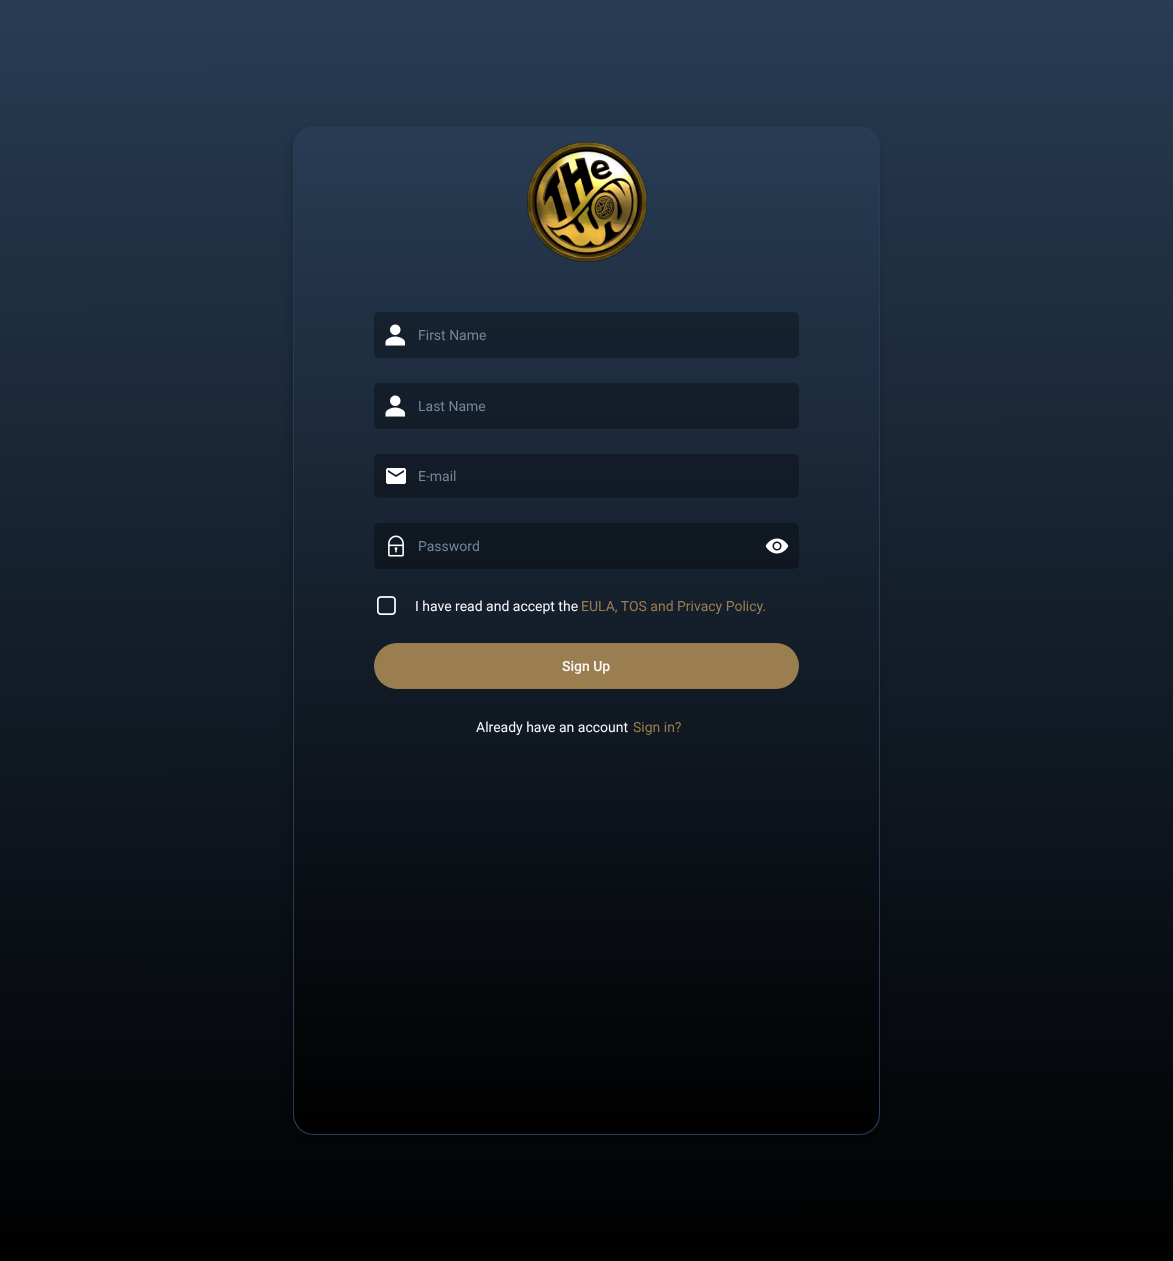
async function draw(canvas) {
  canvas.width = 1173
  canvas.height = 1261
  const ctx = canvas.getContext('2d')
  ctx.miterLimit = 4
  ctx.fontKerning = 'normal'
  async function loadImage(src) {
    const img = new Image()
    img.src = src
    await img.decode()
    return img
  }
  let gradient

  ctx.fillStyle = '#fff'
  ctx.fillRect(0, 0, 1173, 1261)
  gradient = ctx.createLinearGradient(586, 0, 587, 1261)
  gradient.addColorStop(0, '#283c54')
  gradient.addColorStop(1, '#000')
  ctx.fillStyle = gradient
  ctx.fillRect(0, 0, 1173, 1261)
  ctx.fillStyle = '#00000033'
  ctx.filter = 'blur(4px)'
  ctx.beginPath()
  ctx.roundRect(291, 130, 587, 1009, 20)
  ctx.fill()
  ctx.filter = 'none'
  ctx.fillStyle = '#283c54'
  ctx.beginPath()
  ctx.roundRect(293.5, 126.5, 586, 1008, 19.5)
  ctx.fill()
  ctx.strokeStyle = '#283c54'
  ctx.stroke()
  gradient = ctx.createLinearGradient(586, 127, 587, 1134)
  gradient.addColorStop(0, '#283c54')
  gradient.addColorStop(1, '#000')
  ctx.fillStyle = gradient
  ctx.beginPath()
  ctx.roundRect(294, 127, 585, 1007, 20)
  ctx.fill()
  ctx.drawImage(await loadImage('image0.png'), 527, 142, 120, 120)
  ctx.fillStyle = '#0000004d'
  ctx.beginPath()
  ctx.roundRect(374, 312, 425, 46, 5)
  ctx.fill()
  ctx.drawImage(await loadImage('image1.png'), 385, 324, 20, 22)
  ctx.font = '14px Roboto'
  ctx.fillStyle = '#74869c'
  ctx.fillText('First Name', 418, 340)
  ctx.fillStyle = '#0000004d'
  ctx.beginPath()
  ctx.roundRect(374, 383, 425, 46, 5)
  ctx.fill()
  ctx.drawImage(await loadImage('image2.png'), 385, 395, 20, 22)
  ctx.fillStyle = '#74869c'
  ctx.fillText('Last Name', 418, 411)
  ctx.fillStyle = '#0000004d'
  ctx.beginPath()
  ctx.roundRect(374, 454, 425, 44, 5)
  ctx.fill()
  ctx.drawImage(await loadImage('image3.png'), 386, 468, 20, 16)
  ctx.fillStyle = '#74869c'
  ctx.fillText('E-mail', 418, 481)
  ctx.fillStyle = '#0000004d'
  ctx.beginPath()
  ctx.roundRect(374, 523, 425, 46, 5)
  ctx.fill()
  ctx.drawImage(await loadImage('image4.png'), 388, 535, 16, 22)
  ctx.fillStyle = '#74869c'
  ctx.fillText('Password', 418, 551)
  ctx.drawImage(await loadImage('image5.png'), 765, 538, 24, 16)
  ctx.drawImage(await loadImage('image6.png'), 377, 596, 19, 19)
  ctx.fillStyle = '#f9f9f9'
  ctx.fillText('I have read and accept the', 415, 611)
  ctx.fillStyle = '#9a7e50'
  ctx.fillText('EULA, TOS and Privacy Policy.', 581, 611)
  ctx.beginPath()
  ctx.roundRect(374, 643, 425, 46, 23)
  ctx.fill()
  ctx.font = '500 14px Roboto'
  ctx.fillStyle = '#f9f9f9'
  ctx.fillText('Sign Up', 562, 671)
  ctx.font = '14px Roboto'
  ctx.fillText('Already have an account', 476, 732)
  ctx.fillStyle = '#9a7e50'
  ctx.fillText('Sign in?', 633, 732)
}

draw(document.querySelector('canvas'))
